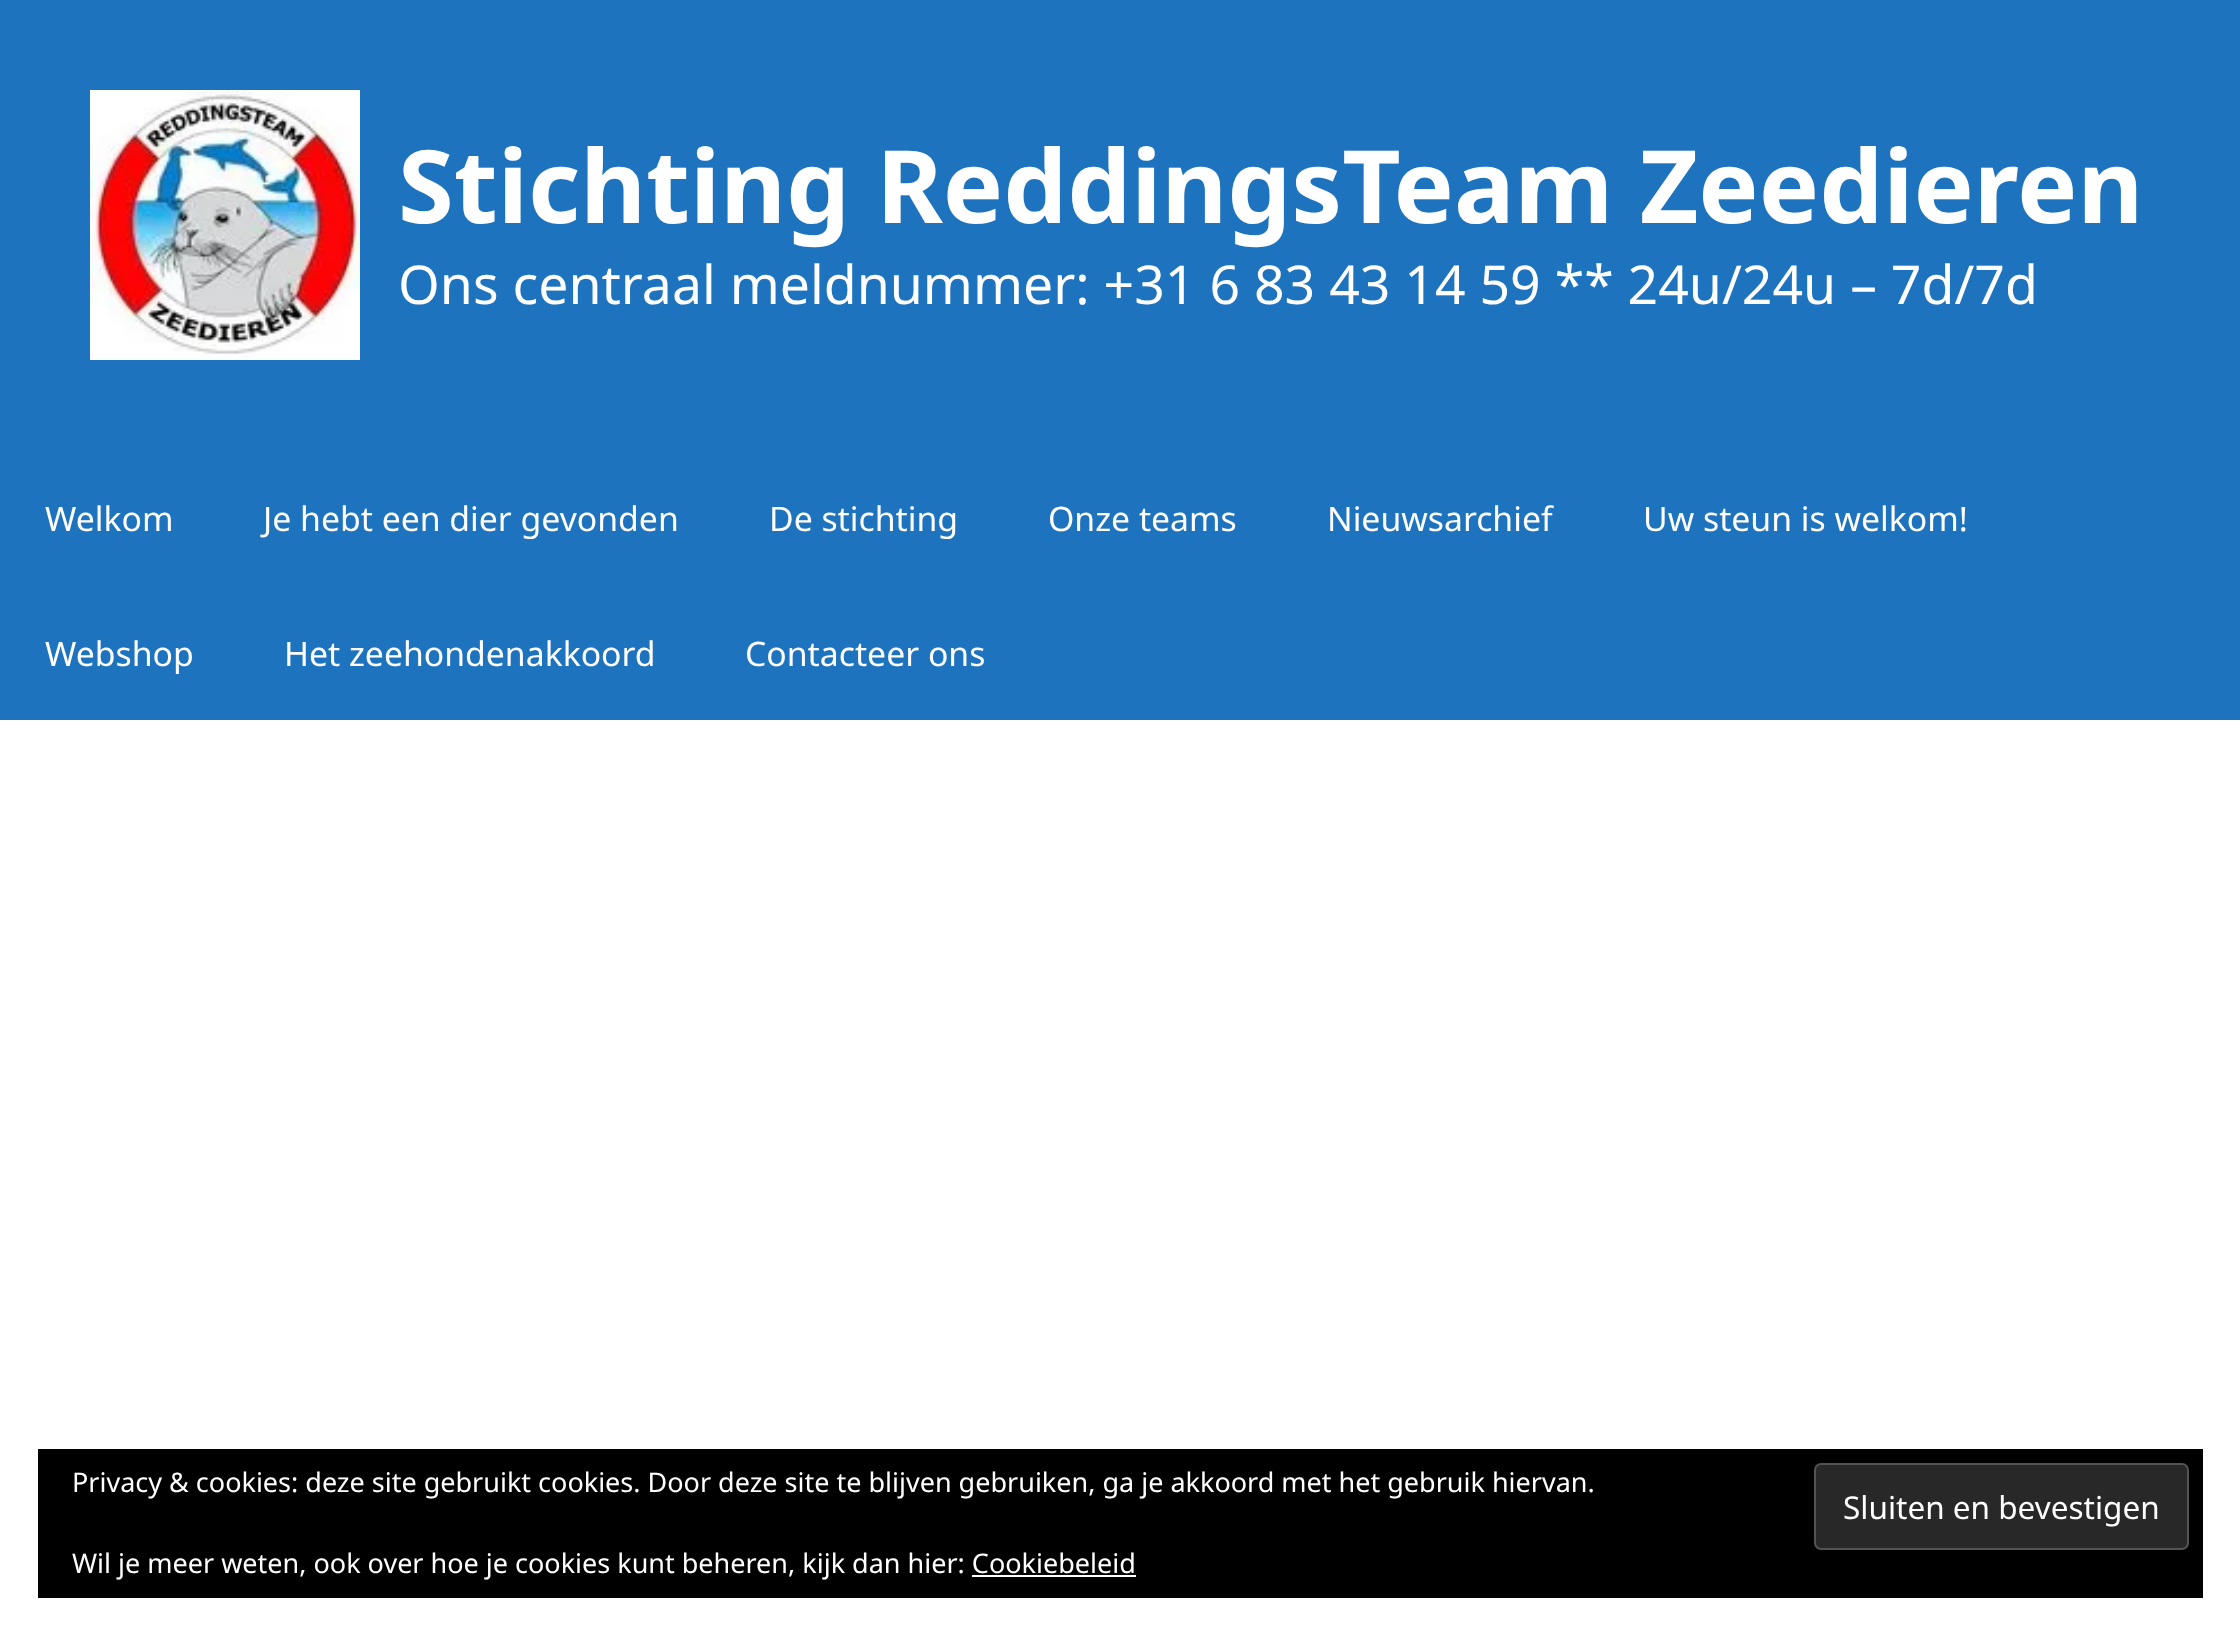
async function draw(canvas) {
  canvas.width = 2240
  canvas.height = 1635
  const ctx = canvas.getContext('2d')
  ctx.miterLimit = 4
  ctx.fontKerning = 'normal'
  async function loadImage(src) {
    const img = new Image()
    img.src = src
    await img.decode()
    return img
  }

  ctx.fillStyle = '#fff'
  ctx.fillRect(0, 0, 2240, 1635)
  ctx.fillStyle = '#1e73be'
  ctx.fillRect(0, 0, 2240, 720)
  ctx.drawImage(await loadImage('image0.png'), 90, 90, 270, 270)
  ctx.font = 'bold 101.25px Noto Sans'
  ctx.fillStyle = '#fff'
  ctx.fillText('Stichting ReddingsTeam Zeedieren', 398, 223)
  ctx.font = '53.55px Noto Sans'
  ctx.fillText('Ons centraal meldnummer: +31 6 83 43 14 59 ** 24u/24u – 7d/7d', 398, 304)
  ctx.font = '33.75px Noto Sans'
  ctx.fillText('Welkom', 45, 531)
  ctx.fillText('Je hebt een dier gevonden', 263, 531)
  ctx.fillText('De stichting', 769, 531)
  ctx.fillText('Onze teams', 1048, 531)
  ctx.fillText('Nieuwsarchief', 1327, 531)
  ctx.fillText('Uw steun is welkom!', 1643, 531)
  ctx.fillText('Webshop', 45, 666)
  ctx.fillText('Het zeehondenakkoord', 284, 666)
  ctx.fillText('Contacteer ons', 745, 666)
  ctx.fillStyle = '#000'
  ctx.fillRect(38, 1449, 2165, 149)
  ctx.font = '27px Noto Sans'
  ctx.fillStyle = '#fff'
  ctx.fillText('Privacy & cookies: deze site gebruikt cookies. Door deze site te blijven gebruiken, ga je akkoord met het gebruik hiervan.', 72, 1492)
  ctx.fillStyle = '#282828'
  ctx.beginPath()
  ctx.roundRect(1815, 1464, 373, 85, 6)
  ctx.fill()
  ctx.strokeStyle = '#535353'
  ctx.lineWidth = 2
  ctx.stroke()
  ctx.font = '31.5px Noto Sans'
  ctx.fillStyle = '#fff'
  ctx.fillText('Sluiten en bevestigen', 1843, 1519)
  ctx.font = '27px Noto Sans'
  ctx.fillText('Wil je meer weten, ook over hoe je cookies kunt beheren, kijk dan hier: Cookiebeleid', 72, 1573)
  ctx.fillRect(972, 1575, 164, 2)
}

draw(document.querySelector('canvas'))
